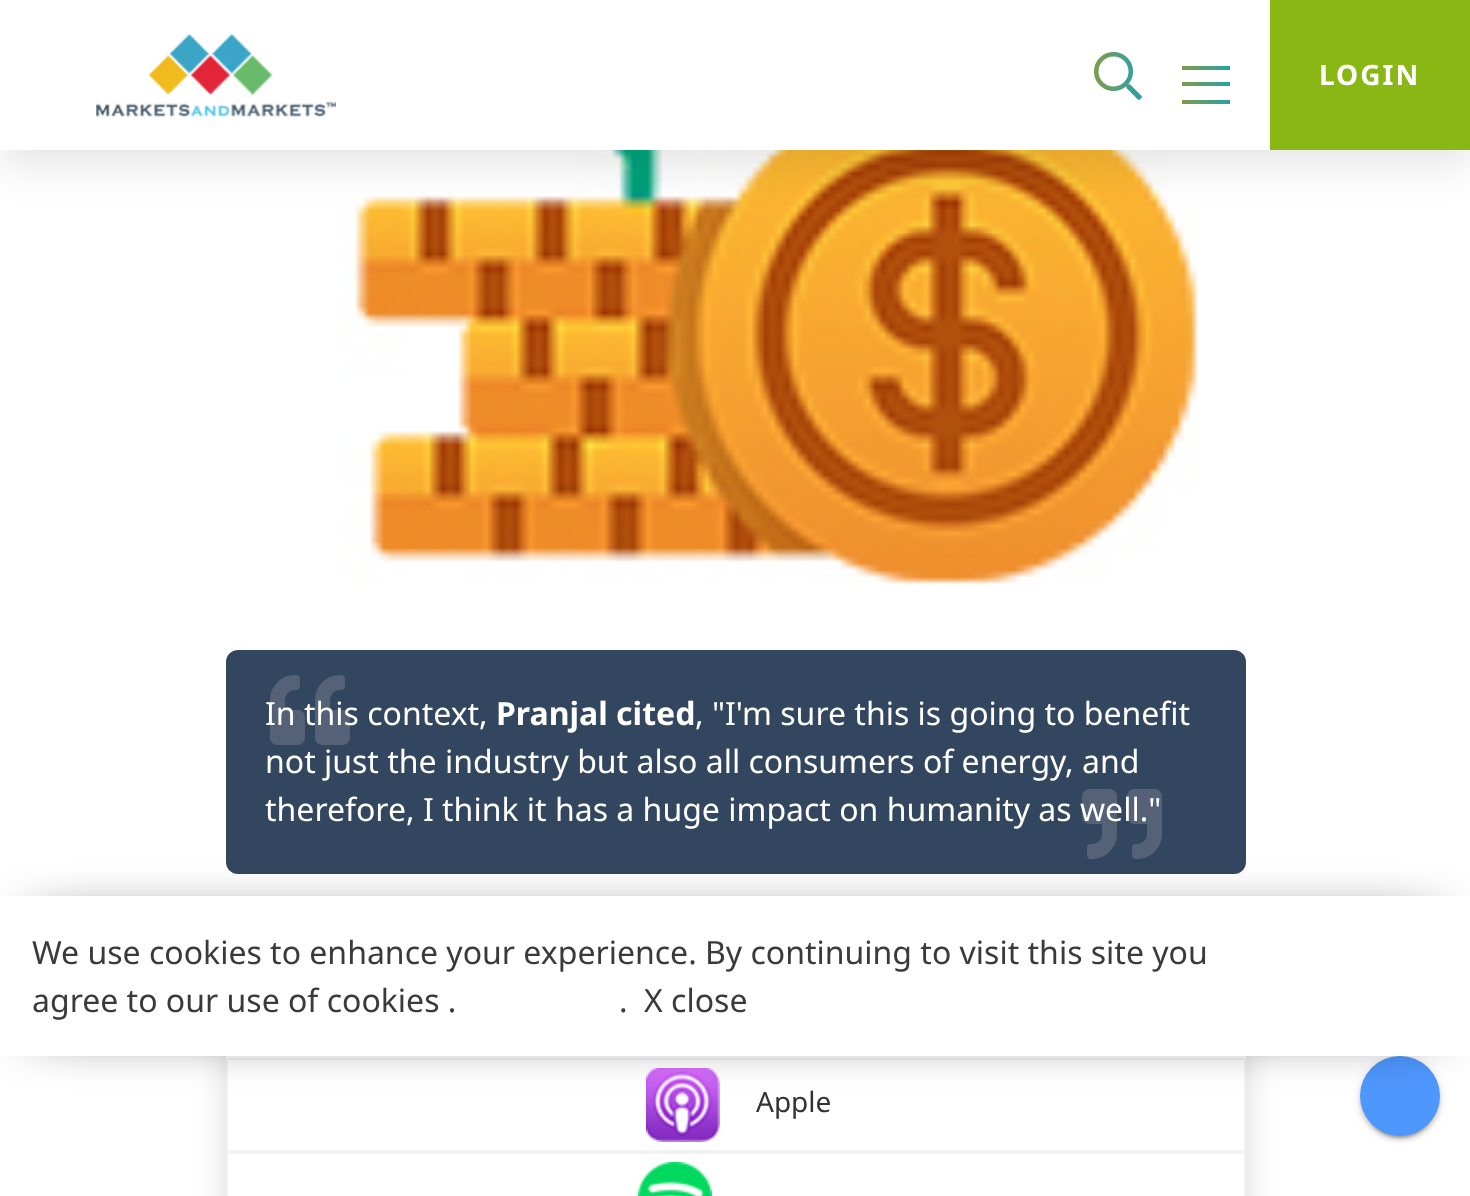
async function draw(canvas) {
  canvas.width = 1470
  canvas.height = 1196
  const ctx = canvas.getContext('2d')
  ctx.miterLimit = 4
  ctx.fontKerning = 'normal'
  async function loadImage(src) {
    const img = new Image()
    img.src = src
    await img.decode()
    return img
  }
  let gradient

  ctx.fillStyle = '#fff'
  ctx.fillRect(0, 0, 1470, 1196)
  ctx.drawImage(await loadImage('image2.png'), 340, 150, 858, 436)
  ctx.fillStyle = '#0000001a'
  ctx.filter = 'blur(20px)'
  ctx.beginPath()
  ctx.rect(0, 16, 1470, 150)
  ctx.fill()
  ctx.filter = 'none'
  ctx.fillStyle = '#fff'
  ctx.fillRect(0, 0, 1270, 150)
  ctx.drawImage(await loadImage('image0.png'), 96, 33, 240, 84)
  ctx.drawImage(await loadImage('image1.png'), 1094, 52, 48, 48)
  gradient = ctx.createLinearGradient(1144, 68, 1249, 68)
  gradient.addColorStop(0, '#c99700')
  gradient.addColorStop(1, '#00a4cb')
  ctx.fillStyle = gradient
  ctx.fillRect(1182, 66, 48, 4)
  gradient = ctx.createLinearGradient(1144, 84, 1249, 84)
  gradient.addColorStop(0, '#c99700')
  gradient.addColorStop(1, '#00a4cb')
  ctx.fillStyle = gradient
  ctx.fillRect(1182, 82, 48, 4)
  gradient = ctx.createLinearGradient(1144, 102, 1249, 102)
  gradient.addColorStop(0, '#c99700')
  gradient.addColorStop(1, '#00a4cb')
  ctx.fillStyle = gradient
  ctx.fillRect(1182, 100, 48, 4)
  ctx.fillStyle = '#89b814'
  ctx.fillRect(1270, 0, 200, 150)
  ctx.letterSpacing = '2px'
  ctx.font = 'bold 28px Noto Sans'
  ctx.fillStyle = '#fff'
  ctx.fillText('LOGIN', 1319, 85)
  ctx.fillStyle = '#334660'
  ctx.beginPath()
  ctx.roundRect(226, 650, 1020, 224, 12)
  ctx.fill()
  ctx.drawImage(await loadImage('image3.png'), 270, 675, 80, 70)
  ctx.letterSpacing = '0px'
  ctx.font = '32px Noto Sans'
  ctx.fillStyle = '#fff'
  ctx.fillText('In this context,', 265, 725)
  ctx.font = 'bold 32px Noto Sans'
  ctx.fillText('Pranjal cited', 496, 725)
  ctx.font = '32px Noto Sans'
  ctx.fillText(', "I\'m sure this is going to benefit', 695, 725)
  ctx.fillText('not just the industry but also all consumers of energy, and', 265, 773)
  ctx.drawImage(await loadImage('image4.png'), 1082, 789, 80, 70)
  ctx.fillText('therefore, I think it has a huge impact on humanity as well."', 265, 821)
  ctx.save()
  ctx.beginPath()
  ctx.moveTo(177, 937)
  ctx.lineTo(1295, 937)
  ctx.lineTo(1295, 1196)
  ctx.lineTo(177, 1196)
  ctx.closePath()
  ctx.moveTo(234, 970)
  ctx.lineTo(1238, 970)
  ctx.bezierCurveTo(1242.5, 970, 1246, 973.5, 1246, 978)
  ctx.lineTo(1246, 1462)
  ctx.bezierCurveTo(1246, 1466.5, 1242.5, 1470, 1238, 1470)
  ctx.lineTo(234, 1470)
  ctx.bezierCurveTo(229.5, 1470, 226, 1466.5, 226, 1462)
  ctx.lineTo(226, 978)
  ctx.bezierCurveTo(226, 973.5, 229.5, 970, 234, 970)
  ctx.closePath()
  ctx.clip('evenodd')
  ctx.fillStyle = '#00000026'
  ctx.filter = 'blur(16px)'
  ctx.beginPath()
  ctx.roundRect(226, 986, 1020, 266, 8)
  ctx.fill()
  ctx.filter = 'none'
  ctx.restore()
  ctx.strokeStyle = '#f2f2f2'
  ctx.lineWidth = 2
  ctx.strokeRect(227, 1059, 1018, 92)
  ctx.drawImage(await loadImage('image5.png'), 646, 1068, 74, 74)
  ctx.font = '28px Noto Sans'
  ctx.fillStyle = '#333'
  ctx.fillText('Apple', 756, 1112)
  ctx.strokeRect(227, 1153, 1018, 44)
  ctx.drawImage(await loadImage('image6.png'), 638, 1162, 74, 34)
  ctx.fillStyle = '#00000033'
  ctx.filter = 'blur(1px)'
  ctx.beginPath()
  ctx.roundRect(1364, 1066, 72, 72, 36)
  ctx.fill()
  ctx.filter = 'none'
  ctx.fillStyle = '#0000001f'
  ctx.filter = 'blur(5px)'
  ctx.beginPath()
  ctx.roundRect(1360, 1058, 80, 80, 40)
  ctx.fill()
  ctx.filter = 'none'
  ctx.fillStyle = '#00000024'
  ctx.filter = 'blur(2px)'
  ctx.beginPath()
  ctx.roundRect(1360, 1060, 80, 80, 40)
  ctx.fill()
  ctx.filter = 'none'
  ctx.fillStyle = '#4e97fd'
  ctx.beginPath()
  ctx.arc(1400, 1096, 40, 0, 2 * Math.PI)
  ctx.fill()
  ctx.fillStyle = '#000000fa'
  ctx.filter = 'blur(29px)'
  ctx.beginPath()
  ctx.rect(34, 930, 1402, 92)
  ctx.fill()
  ctx.filter = 'none'
  ctx.fillStyle = '#fff'
  ctx.fillRect(0, 896, 1470, 160)
  ctx.font = '32px Noto Sans'
  ctx.fillStyle = '#3a3a3a'
  ctx.fillText('We use cookies to enhance your experience. By continuing to visit this site you', 32, 964)
  ctx.fillText('agree to our use of cookies .', 32, 1012)
  ctx.fillText('.', 619, 1012)
  ctx.fillText('X close', 644, 1012)
}

draw(document.querySelector('canvas'))
